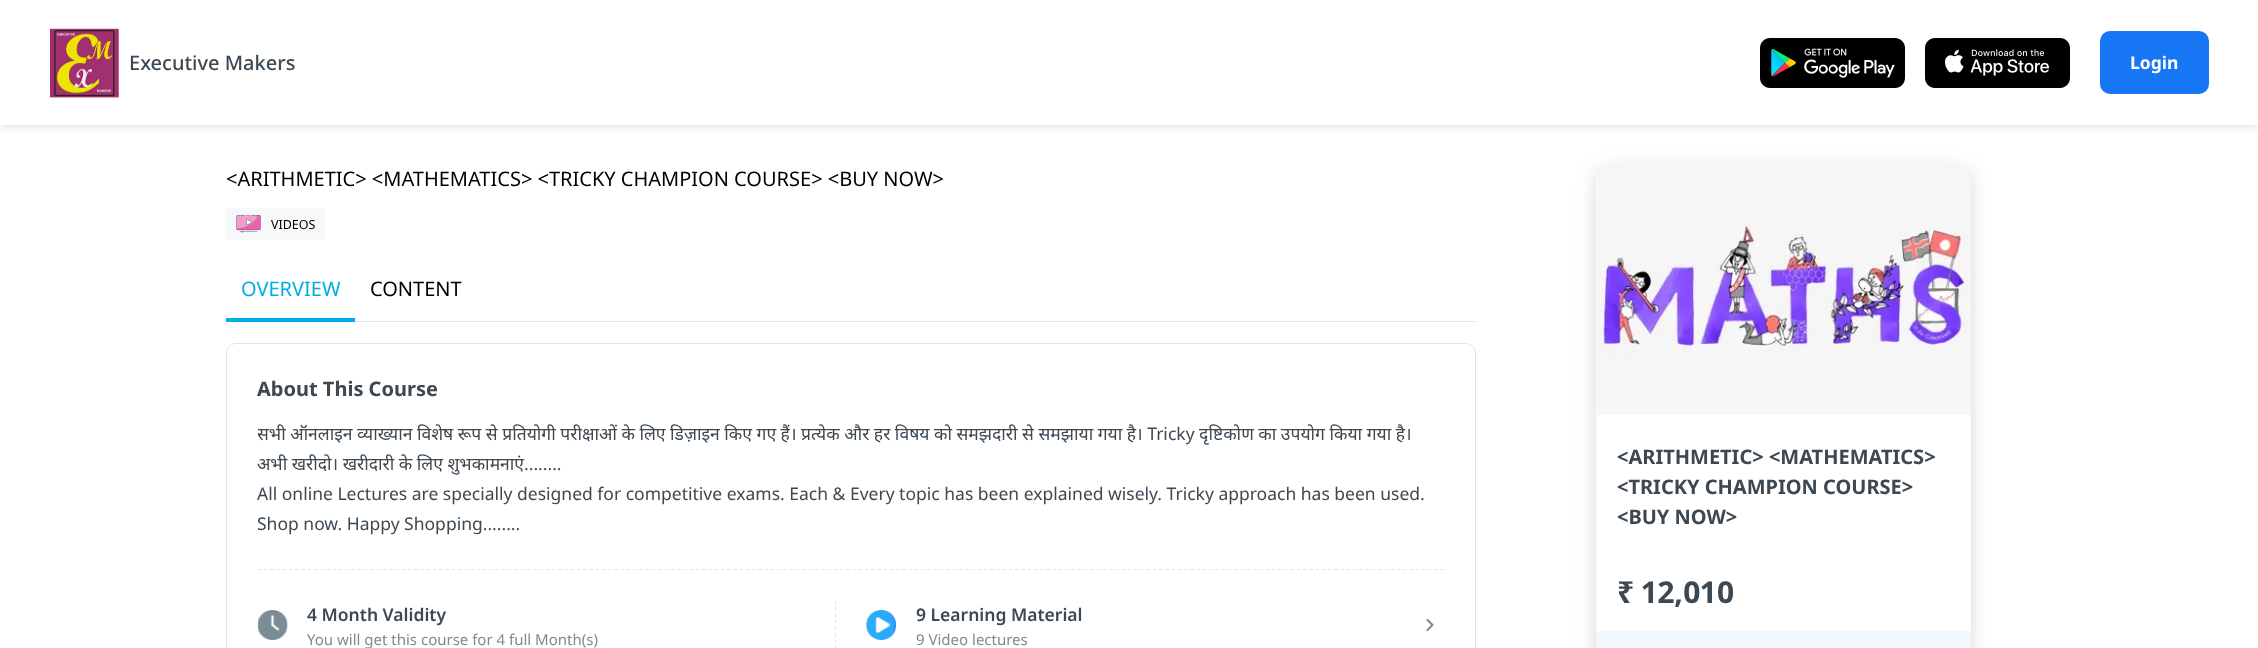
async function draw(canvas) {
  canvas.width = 2258
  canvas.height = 648
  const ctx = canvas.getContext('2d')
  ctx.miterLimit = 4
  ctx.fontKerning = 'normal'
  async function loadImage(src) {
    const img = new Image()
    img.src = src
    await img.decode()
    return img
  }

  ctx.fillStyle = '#fff'
  ctx.fillRect(0, 0, 2258, 648)
  ctx.save()
  ctx.beginPath()
  ctx.rect(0, 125, 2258, 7)
  ctx.clip()
  ctx.fillStyle = '#0a16291a'
  ctx.filter = 'blur(5px)'
  ctx.beginPath()
  ctx.rect(0, 3, 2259, 125)
  ctx.fill()
  ctx.filter = 'none'
  ctx.restore()
  ctx.drawImage(await loadImage('image0.png'), 50, 28, 69, 70)
  ctx.font = '500 20px Noto Sans'
  ctx.fillStyle = '#3c4852'
  ctx.fillText('Executive Makers', 129, 70)
  ctx.drawImage(await loadImage('image1.png'), 1760, 38, 145, 50)
  ctx.drawImage(await loadImage('image2.png'), 1925, 38, 145, 50)
  ctx.fillStyle = '#1676f3'
  ctx.beginPath()
  ctx.roundRect(2100, 31, 109, 63, 10)
  ctx.fill()
  ctx.font = 'bold 17.5px Noto Sans'
  ctx.fillStyle = '#fff'
  ctx.fillText('Login', 2130, 69)
  ctx.font = '20px Noto Sans'
  ctx.fillStyle = '#000'
  ctx.fillText('<ARITHMETIC> <MATHEMATICS> <TRICKY CHAMPION COURSE> <BUY NOW>', 226, 186)
  ctx.fillStyle = '#f6f8fa'
  ctx.fillRect(226, 208, 99, 32)
  ctx.drawImage(await loadImage('image3.png'), 236, 215, 25, 18)
  ctx.font = '12.5px Noto Sans'
  ctx.fillStyle = '#000'
  ctx.fillText('VIDEOS', 271, 229)
  ctx.fillStyle = '#e5e5e5'
  ctx.fillRect(355, 321, 1121, 1)
  ctx.fillStyle = '#00ade7'
  ctx.fillRect(226, 318, 129, 4)
  ctx.font = '20px Noto Sans'
  ctx.fillText('OVERVIEW', 241, 296)
  ctx.fillStyle = '#000'
  ctx.fillText('CONTENT', 370, 296)
  ctx.beginPath()
  ctx.roundRect(226.5, 343.5, 1249, 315, 9.5)
  ctx.strokeStyle = '#e5e5e5'
  ctx.stroke()
  ctx.font = 'bold 20px Noto Sans'
  ctx.fillStyle = '#3c4852'
  ctx.fillText('About This Course', 257, 396)
  ctx.save()
  ctx.beginPath()
  ctx.rect(258, 419, 1187, 120)
  ctx.clip()
  ctx.font = '17.5px Noto Sans'
  ctx.fillText('सभी ऑनलाइन व्याख्यान विशेष रूप से प्रतियोगी परीक्षाओं के लिए डिज़ाइन किए गए हैं। प्रत्येक और हर विषय को समझदारी से समझाया गया है। Tricky दृष्टिकोण का उपयोग किया गया है।', 257, 440)
  ctx.restore()
  ctx.font = '17.5px Noto Sans'
  ctx.fillText('अभी खरीदो। खरीदारी के लिए शुभकामनाएं........', 257, 470)
  ctx.fillText('All online Lectures are specially designed for competitive exams. Each & Every topic has been explained wisely. Tricky approach has been used.', 257, 500)
  ctx.fillText('Shop now. Happy Shopping........', 257, 530)
  ctx.beginPath()
  ctx.moveTo(257.5, 569.5)
  ctx.lineTo(1445, 569.5)
  ctx.lineWidth = 1.2
  ctx.setLineDash([3.75, 2.51])
  ctx.stroke()
  ctx.beginPath()
  ctx.moveTo(835.5, 600)
  ctx.lineTo(835.5, 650)
  ctx.setLineDash([3.75, 2.86])
  ctx.stroke()
  ctx.drawImage(await loadImage('image4.png'), 258, 610, 30, 30)
  ctx.font = '600 17.5px Noto Sans'
  ctx.fillText('4 Month Validity', 307, 621)
  ctx.font = '15px Noto Sans'
  ctx.fillStyle = '#7a8b94'
  ctx.fillText('You will get this course for 4 full Month(s)', 307, 645)
  ctx.drawImage(await loadImage('image5.png'), 866, 610, 30, 30)
  ctx.font = '600 17.5px Noto Sans'
  ctx.fillStyle = '#3c4852'
  ctx.fillText('9 Learning Material', 916, 621)
  ctx.font = '15px Noto Sans'
  ctx.fillStyle = '#7a8b94'
  ctx.fillText('9 Video lectures', 916, 645)
  ctx.beginPath()
  ctx.moveTo(1427.5, 630)
  ctx.lineTo(1432.5, 625)
  ctx.lineTo(1427.5, 620)
  ctx.strokeStyle = '#7a8b94'
  ctx.lineWidth = 2.1
  ctx.lineCap = 'round'
  ctx.lineJoin = 'round'
  ctx.setLineDash([])
  ctx.stroke()
  ctx.fillStyle = '#66666640'
  ctx.filter = 'blur(10px)'
  ctx.beginPath()
  ctx.roundRect(1596, 170, 375, 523, 15)
  ctx.fill()
  ctx.filter = 'none'
  ctx.fillStyle = '#fff'
  ctx.beginPath()
  ctx.roundRect(1596, 165, 375, 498, 15)
  ctx.fill()
  ctx.drawImage(await loadImage('image6.png'), 1596, 165, 375, 250)
  ctx.font = 'bold 20px Noto Sans'
  ctx.fillStyle = '#3c4852'
  ctx.fillText('<ARITHMETIC> <MATHEMATICS>', 1617, 464)
  ctx.fillText('<TRICKY CHAMPION COURSE>', 1617, 494)
  ctx.fillText('<BUY NOW>', 1617, 524)
  ctx.font = 'bold 30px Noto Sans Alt'
  ctx.fillText('₹ 12,010', 1617, 603)
  ctx.fillStyle = '#f2f7fb'
  ctx.fillRect(1596, 631, 375, 17)
}

draw(document.querySelector('canvas'))
